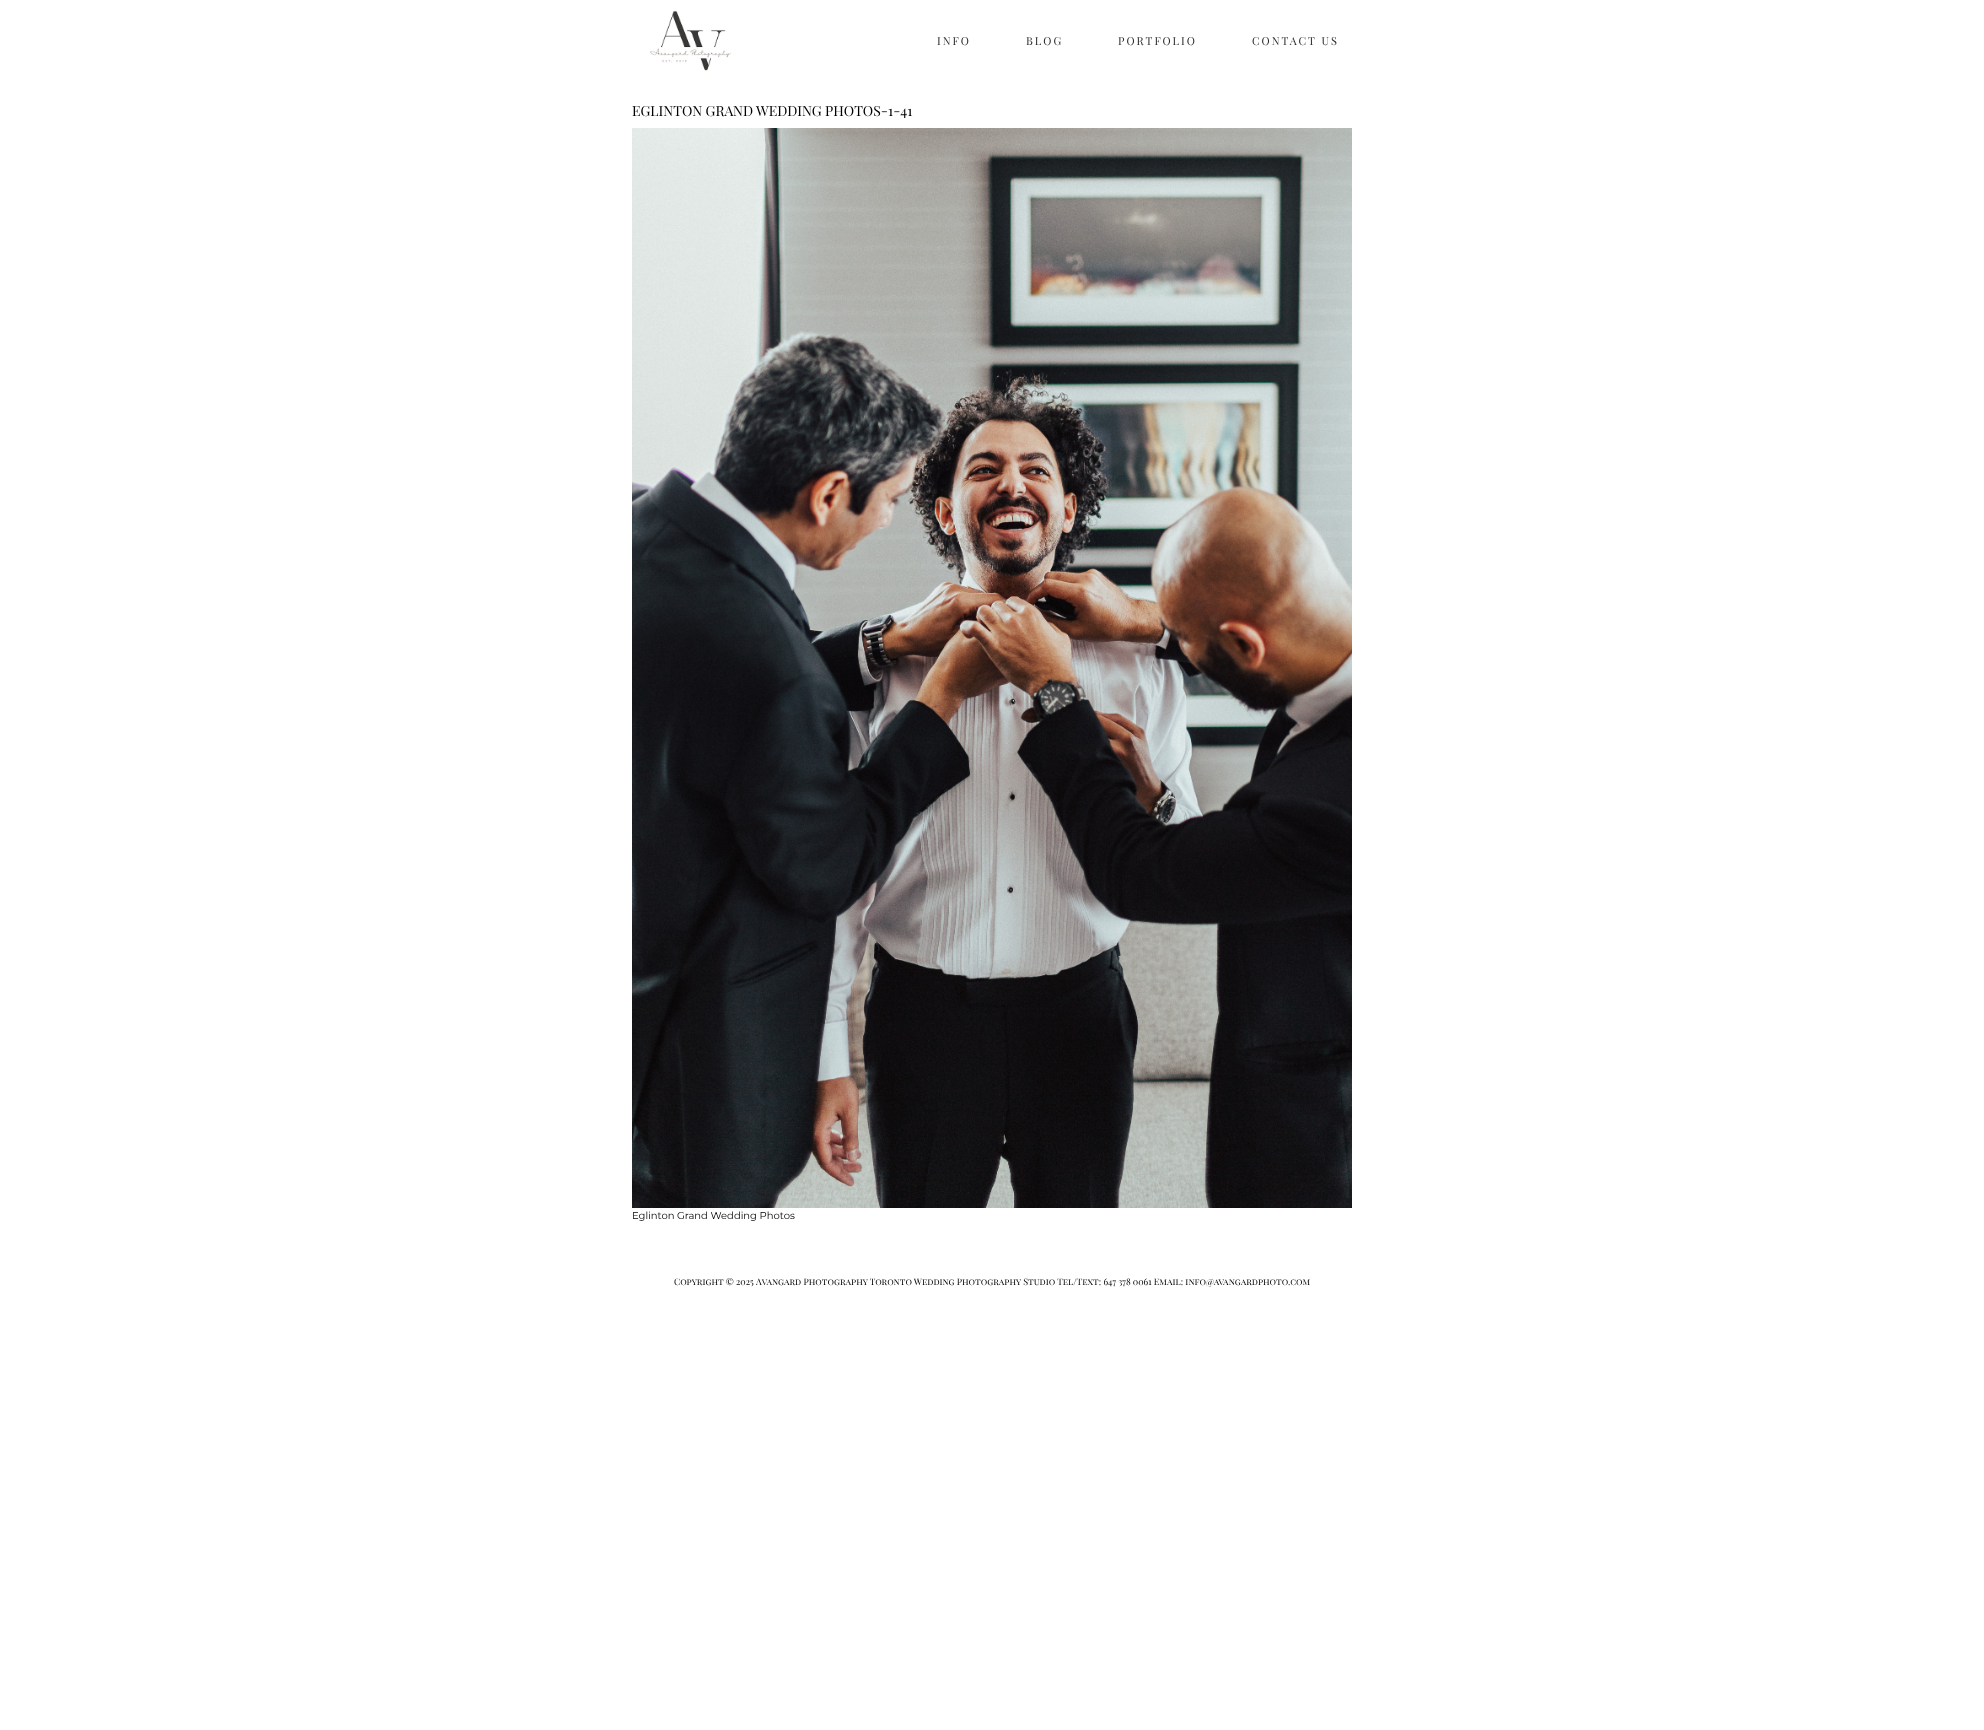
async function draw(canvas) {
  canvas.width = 1984
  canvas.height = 1730
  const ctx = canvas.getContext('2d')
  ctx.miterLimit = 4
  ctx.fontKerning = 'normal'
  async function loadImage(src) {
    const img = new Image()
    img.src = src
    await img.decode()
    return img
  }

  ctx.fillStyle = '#fff'
  ctx.fillRect(0, 0, 1984, 1730)
  ctx.drawImage(await loadImage('image0.png'), 650, 10, 81, 61)
  ctx.letterSpacing = '2px'
  ctx.font = '11px Playfair Display SC'
  ctx.fillStyle = '#2b2b2b'
  ctx.fillText('INFO', 937, 45)
  ctx.fillText('BLOG', 1026, 45)
  ctx.fillText('PORTFOLIO', 1118, 45)
  ctx.fillText('CONTACT US', 1252, 45)
  ctx.letterSpacing = '0px'
  ctx.font = '14px Playfair Display SC'
  ctx.fillStyle = '#000'
  ctx.fillText('EGLINTON GRAND WEDDING PHOTOS-1-41', 632, 116)
  ctx.drawImage(await loadImage('image1.png'), 632, 128, 720, 1080)
  ctx.font = '100 10px Montserrat'
  ctx.fillText('Eglinton Grand Wedding Photos', 632, 1219)
  ctx.font = '9px Playfair Display SC'
  ctx.fillText('Copyright © 2025', 674, 1285)
  ctx.fillText('Avangard Photography Toronto Wedding Photography Studio Tel/Text: 647 378 0061 Email: info@avangardphoto.com', 756, 1285)
}

draw(document.querySelector('canvas'))
